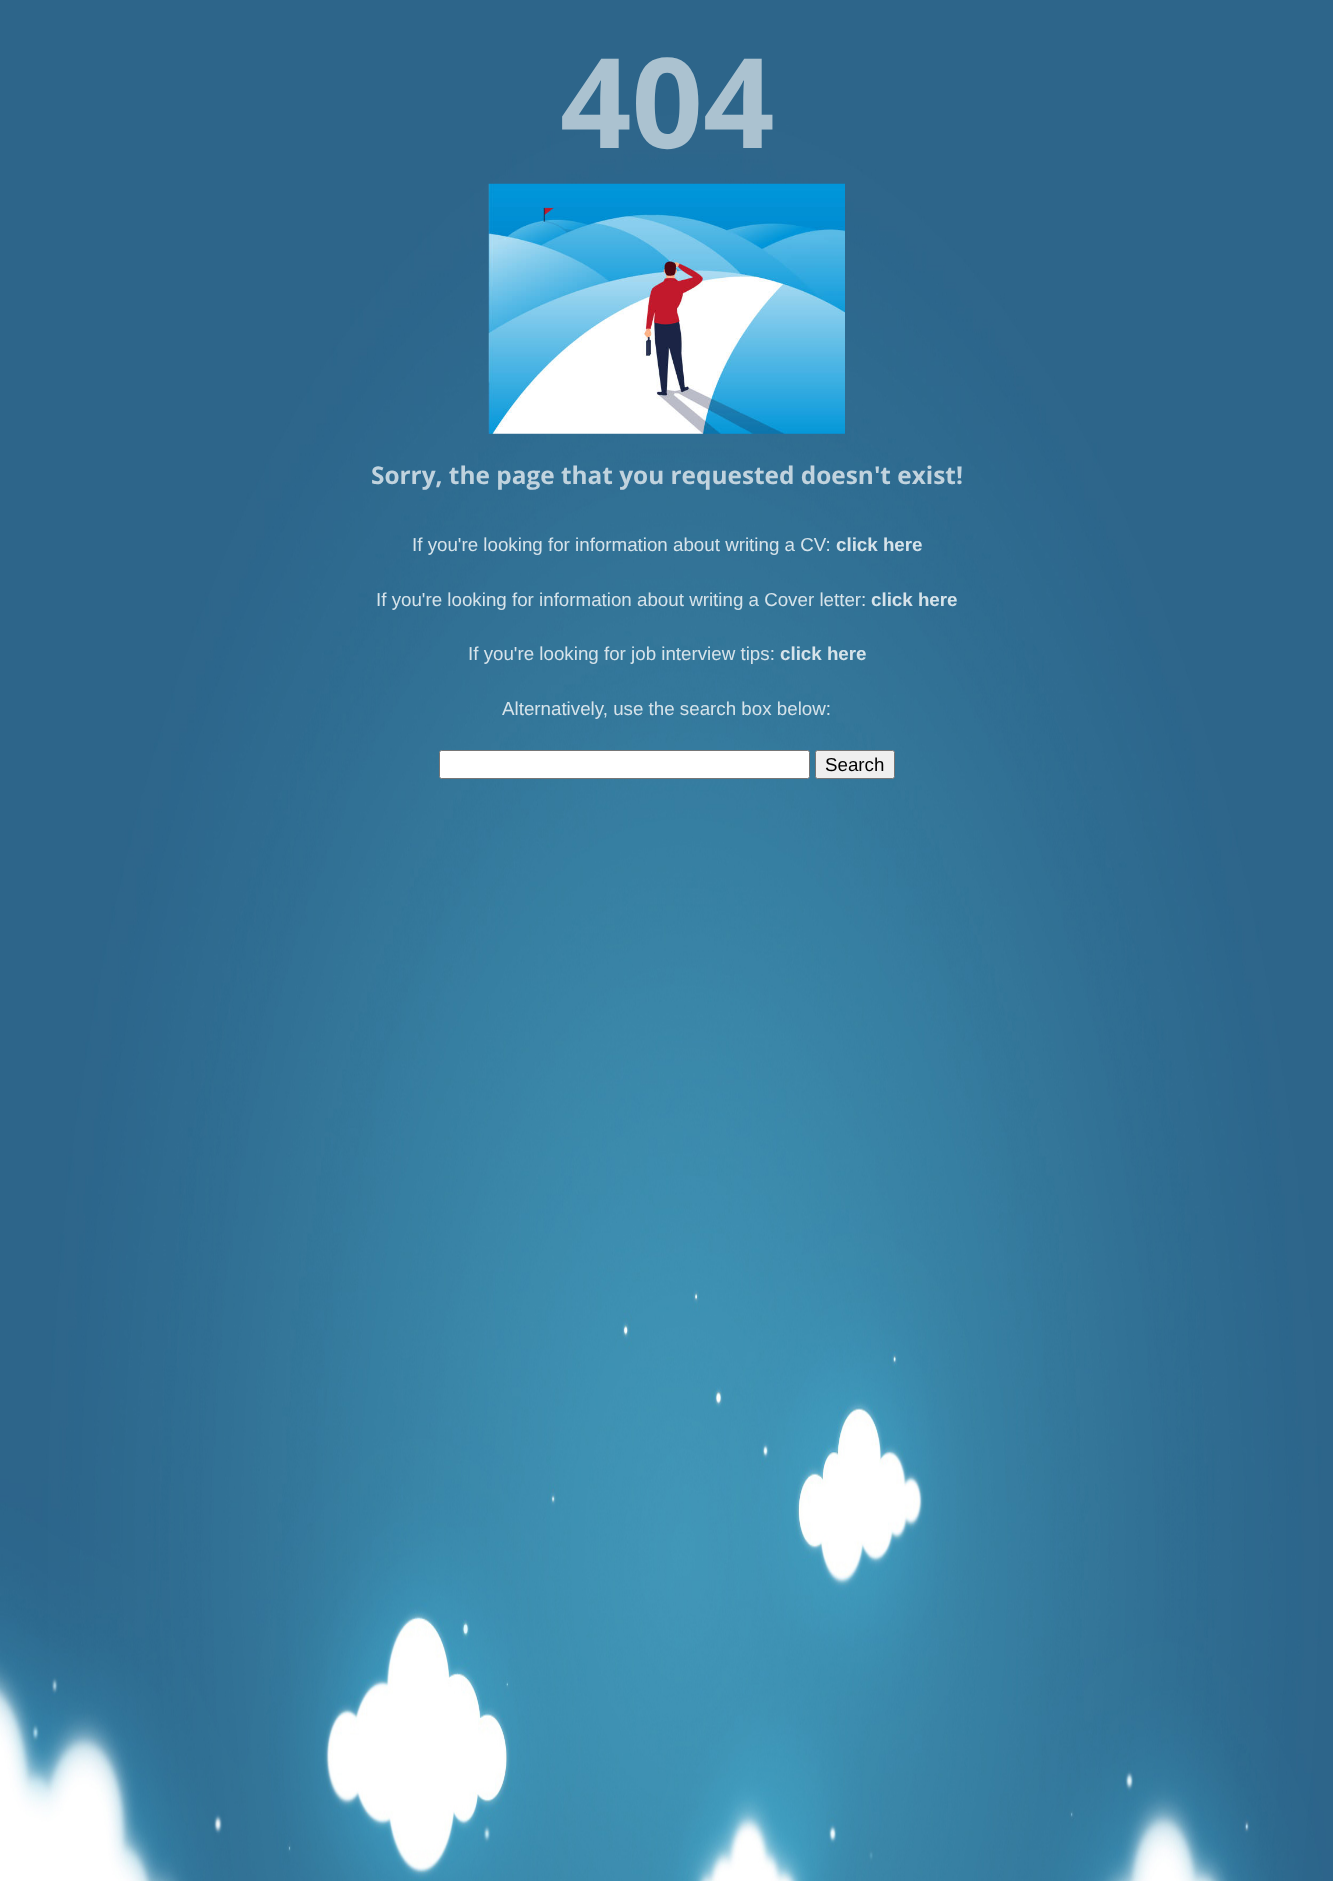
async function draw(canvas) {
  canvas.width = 1333
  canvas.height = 1881
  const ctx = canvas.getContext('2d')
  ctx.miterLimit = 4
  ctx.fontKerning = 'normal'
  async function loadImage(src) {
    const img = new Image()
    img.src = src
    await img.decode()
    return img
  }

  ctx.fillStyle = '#fff'
  ctx.fillRect(0, 0, 1333, 1881)
  ctx.drawImage(await loadImage('image0.png'), 0, 0, 1333, 1881)
  ctx.font = 'bold 125px Open Sans'
  ctx.fillStyle = '#abc2d0'
  ctx.fillText('404', 560, 148)
  ctx.drawImage(await loadImage('image1.png'), 488, 183, 357, 251)
  ctx.font = 'bold 24.4px Open Sans'
  ctx.fillStyle = '#c1d3de'
  ctx.fillText('Sorry, the page that you requested doesn\'t exist!', 371, 484)
  ctx.font = '18.75px Liberation Sans'
  ctx.fillStyle = '#d6e3ea'
  ctx.fillText('If you\'re looking for information about writing a CV:', 412, 551)
  ctx.font = 'bold 18.75px Liberation Sans'
  ctx.fillText('click here', 836, 551)
  ctx.font = '18.75px Liberation Sans'
  ctx.fillText('If you\'re looking for information about writing a Cover letter:', 376, 606)
  ctx.font = 'bold 18.75px Liberation Sans'
  ctx.fillText('click here', 871, 606)
  ctx.font = '18.75px Liberation Sans'
  ctx.fillText('If you\'re looking for job interview tips:', 468, 660)
  ctx.font = 'bold 18.75px Liberation Sans'
  ctx.fillText('click here', 780, 660)
  ctx.font = '18.75px Liberation Sans'
  ctx.fillText('Alternatively, use the search box below:', 502, 715)
  ctx.fillStyle = '#fff'
  ctx.beginPath()
  ctx.roundRect(439.5, 750.5, 370, 28, 2)
  ctx.fill()
  ctx.strokeStyle = '#767676'
  ctx.stroke()
  ctx.fillStyle = '#efefef'
  ctx.beginPath()
  ctx.roundRect(815.5, 750.5, 79, 28, 2)
  ctx.fill()
  ctx.stroke()
  ctx.fillStyle = '#000'
  ctx.fillText('Search', 825, 771)
}

draw(document.querySelector('canvas'))
